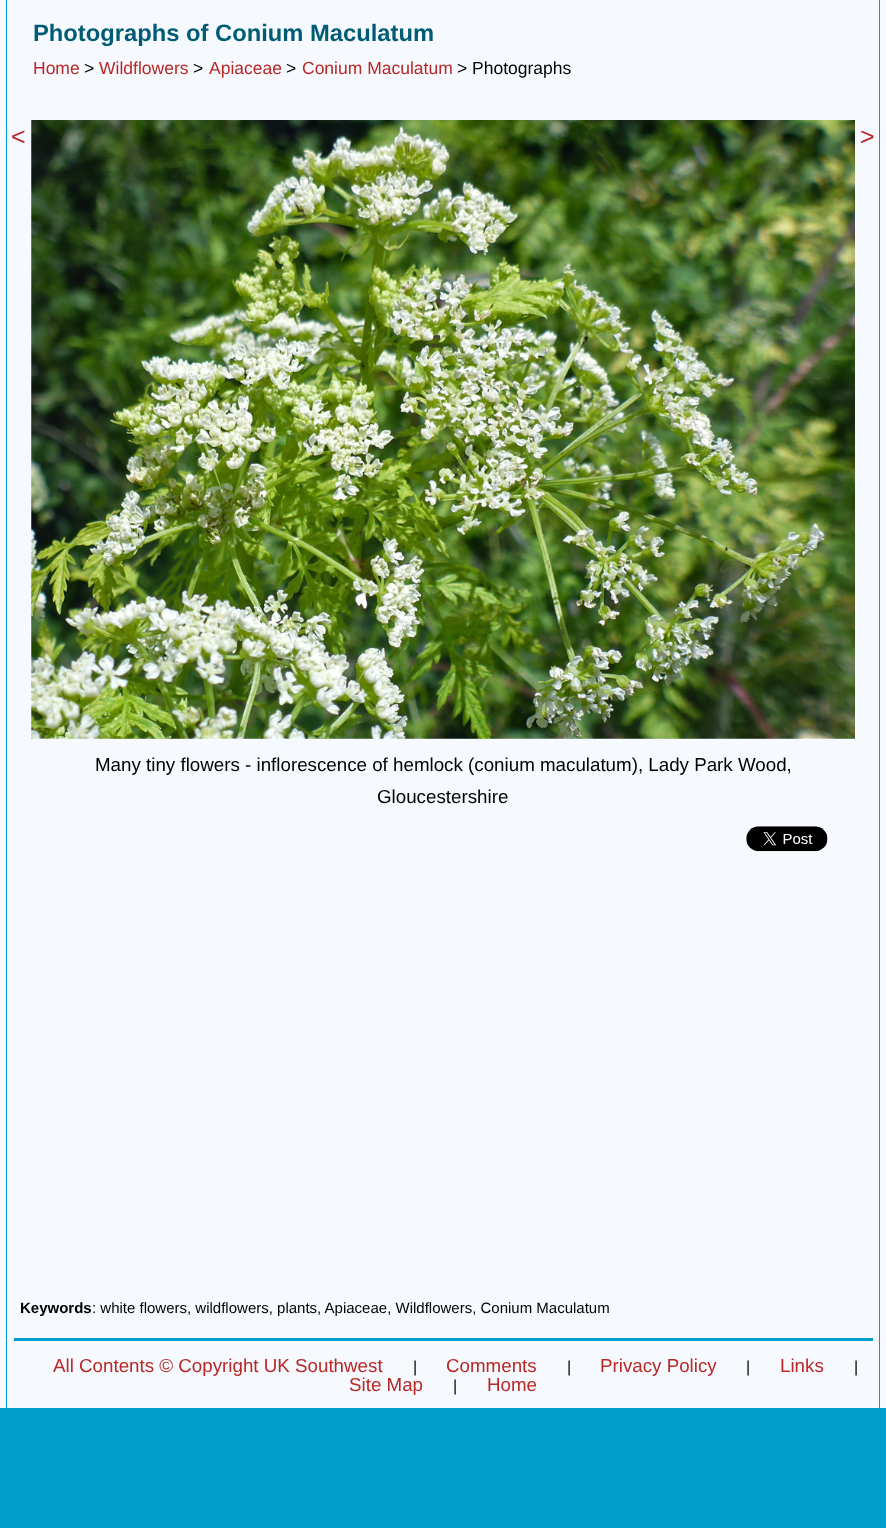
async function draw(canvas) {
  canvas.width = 886
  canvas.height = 1528
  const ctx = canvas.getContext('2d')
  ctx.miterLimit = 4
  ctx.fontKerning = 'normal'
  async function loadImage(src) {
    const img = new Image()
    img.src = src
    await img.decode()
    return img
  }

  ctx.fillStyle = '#009fcb'
  ctx.fillRect(0, 0, 886, 1528)
  ctx.fillStyle = '#f6faff'
  ctx.fillRect(0, 0, 886, 1408)
  ctx.fillStyle = '#009fcb'
  ctx.fillRect(879, 0, 1, 1408)
  ctx.fillRect(6, 0, 1, 1408)
  ctx.font = 'bold 23.75px Liberation Sans'
  ctx.fillStyle = '#005c75'
  ctx.fillText('Photographs of Conium Maculatum', 33, 41)
  ctx.font = '17.5px Liberation Sans'
  ctx.fillStyle = '#b92726'
  ctx.fillText('Home', 33, 74)
  ctx.fillStyle = '#000'
  ctx.fillText('>', 84, 74)
  ctx.fillStyle = '#b92726'
  ctx.fillText('Wildflowers', 99, 74)
  ctx.fillStyle = '#000'
  ctx.fillText('>', 193, 74)
  ctx.fillStyle = '#b92726'
  ctx.fillText('Apiaceae', 209, 74)
  ctx.fillStyle = '#000'
  ctx.fillText('>', 286, 74)
  ctx.fillStyle = '#b92726'
  ctx.fillText('Conium Maculatum', 302, 74)
  ctx.fillStyle = '#000'
  ctx.fillText('> Photographs', 457, 74)
  ctx.font = '25px Liberation Sans'
  ctx.fillStyle = '#b92726'
  ctx.fillText('<', 11, 145)
  ctx.fillText('>', 860, 145)
  ctx.drawImage(await loadImage('image0.png'), 31, 120, 824, 619)
  ctx.font = '18.75px Liberation Sans'
  ctx.fillStyle = '#000'
  ctx.fillText('Many tiny flowers - inflorescence of hemlock (conium maculatum), Lady Park Wood,', 95, 771)
  ctx.fillText('Gloucestershire', 377, 803)
  ctx.drawImage(await loadImage('image1.png'), 746, 826, 82, 26)
  ctx.font = 'bold 15px Liberation Sans'
  ctx.fillText('Keywords', 20, 1313)
  ctx.font = '15px Liberation Sans'
  ctx.fillText(': white flowers, wildflowers, plants, Apiaceae, Wildflowers, Conium Maculatum', 92, 1313)
  ctx.fillStyle = '#009fcb'
  ctx.fillRect(14, 1338, 859, 3)
  ctx.font = '18.75px Liberation Sans'
  ctx.fillStyle = '#b92726'
  ctx.fillText('All Contents © Copyright UK Southwest', 53, 1372)
  ctx.font = '16px Liberation Sans'
  ctx.fillStyle = '#000'
  ctx.fillText('|', 413, 1372)
  ctx.font = '18.75px Liberation Sans'
  ctx.fillStyle = '#b92726'
  ctx.fillText('Comments', 446, 1372)
  ctx.font = '16px Liberation Sans'
  ctx.fillStyle = '#000'
  ctx.fillText('|', 567, 1372)
  ctx.font = '18.75px Liberation Sans'
  ctx.fillStyle = '#b92726'
  ctx.fillText('Privacy Policy', 600, 1372)
  ctx.font = '16px Liberation Sans'
  ctx.fillStyle = '#000'
  ctx.fillText('|', 746, 1372)
  ctx.font = '18.75px Liberation Sans'
  ctx.fillStyle = '#b92726'
  ctx.fillText('Links', 780, 1372)
  ctx.font = '16px Liberation Sans'
  ctx.fillStyle = '#000'
  ctx.fillText('|', 854, 1372)
  ctx.font = '18.75px Liberation Sans'
  ctx.fillStyle = '#b92726'
  ctx.fillText('Site Map', 349, 1391)
  ctx.font = '16px Liberation Sans'
  ctx.fillStyle = '#000'
  ctx.fillText('|', 453, 1391)
  ctx.font = '18.75px Liberation Sans'
  ctx.fillStyle = '#b92726'
  ctx.fillText('Home', 487, 1391)
}

draw(document.querySelector('canvas'))
